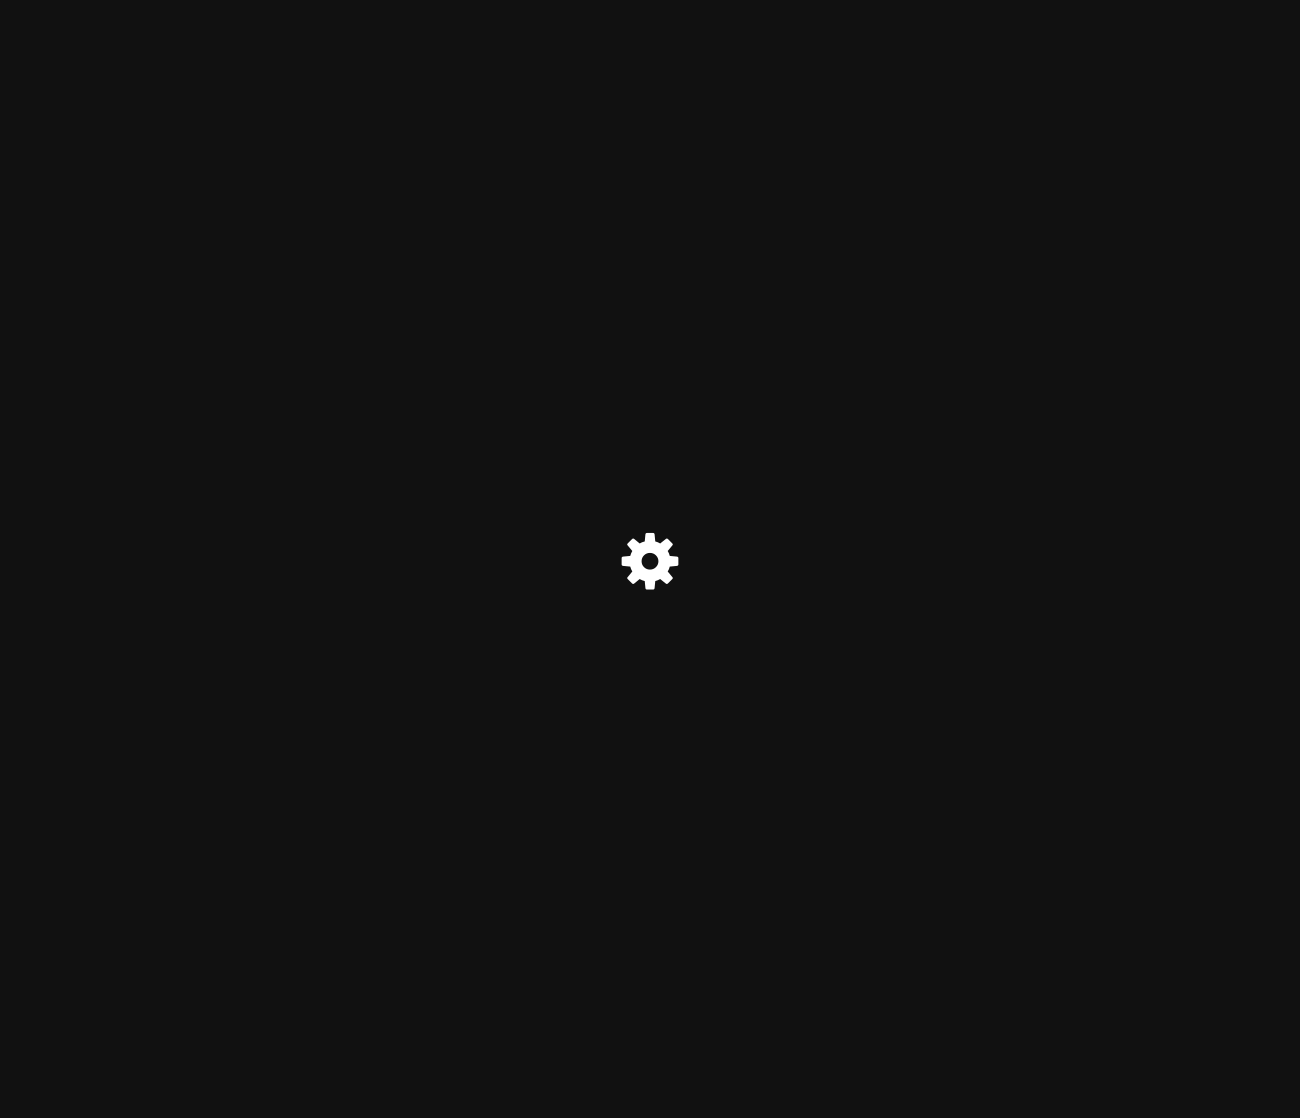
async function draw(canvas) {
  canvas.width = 1300
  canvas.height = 1118
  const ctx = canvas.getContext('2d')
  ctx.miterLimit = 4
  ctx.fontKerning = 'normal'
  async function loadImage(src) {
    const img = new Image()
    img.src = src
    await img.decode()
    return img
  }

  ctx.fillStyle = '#111'
  ctx.fillRect(0, 0, 1300, 1118)
  ctx.drawImage(await loadImage('image0.png'), 621, 532, 58, 58)
}

draw(document.querySelector('canvas'))
